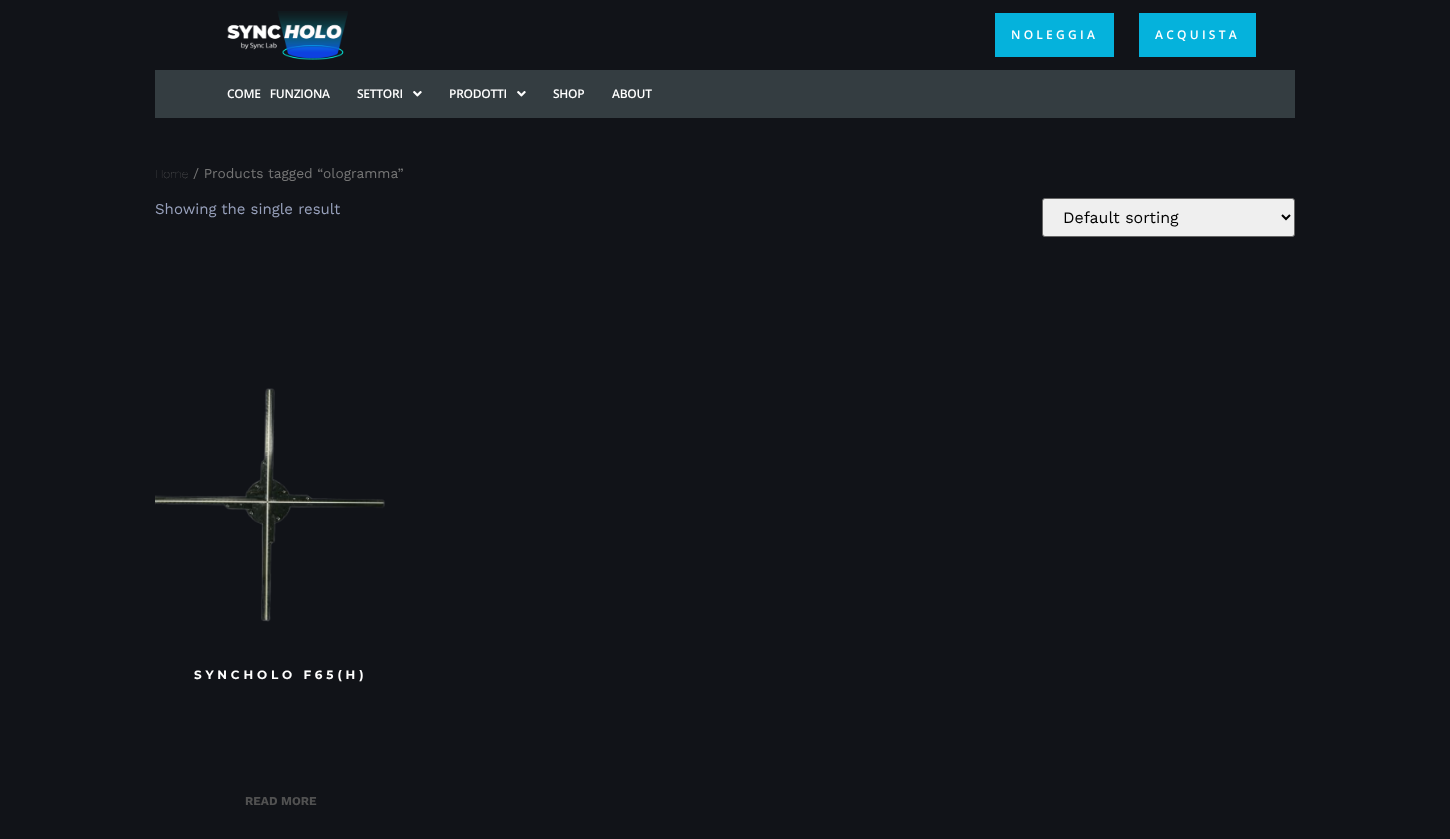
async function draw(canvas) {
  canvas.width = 1450
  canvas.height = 839
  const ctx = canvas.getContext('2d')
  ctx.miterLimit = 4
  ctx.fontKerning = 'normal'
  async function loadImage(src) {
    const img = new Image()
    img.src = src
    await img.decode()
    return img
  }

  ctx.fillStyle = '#111318'
  ctx.fillRect(0, 0, 1450, 839)
  ctx.drawImage(await loadImage('image0.png'), 227, 11, 121, 49)
  ctx.fillStyle = '#05b2dc'
  ctx.fillRect(995, 13, 119, 44)
  ctx.letterSpacing = '3.25px'
  ctx.font = '600 12px Open Sans'
  ctx.fillStyle = '#fff'
  ctx.fillText('NOLEGGIA', 1011, 39)
  ctx.fillStyle = '#05b2dc'
  ctx.fillRect(1139, 13, 117, 44)
  ctx.fillStyle = '#fff'
  ctx.fillText('ACQUISTA', 1155, 39)
  ctx.fillStyle = '#343d41'
  ctx.fillRect(155, 70, 1140, 48)
  ctx.letterSpacing = '-0.25px'
  ctx.wordSpacing = '6px'
  ctx.fillStyle = '#fff'
  ctx.fillText('COME FUNZIONA', 227, 98)
  ctx.wordSpacing = '0px'
  ctx.fillText('SETTORI', 357, 98)
  ctx.drawImage(await loadImage('image1.png'), 413, 91, 9, 6)
  ctx.fillText('PRODOTTI', 449, 98)
  ctx.drawImage(await loadImage('image1.png'), 517, 91, 9, 6)
  ctx.fillText('SHOP', 553, 98)
  ctx.fillText('ABOUT', 612, 98)
  ctx.letterSpacing = '0px'
  ctx.font = '100 12px Work Sans'
  ctx.fillStyle = '#767676'
  ctx.fillText('Home', 155, 178)
  ctx.font = '13.75px Work Sans'
  ctx.fillText('/ Products tagged “ologramma”', 193, 178)
  ctx.font = '15px Work Sans'
  ctx.fillStyle = '#98a1bc'
  ctx.fillText('Showing the single result', 155, 214)
  ctx.fillStyle = '#efefef'
  ctx.beginPath()
  ctx.roundRect(1042.5, 198.5, 252, 38, 2.5)
  ctx.fill()
  ctx.strokeStyle = '#666'
  ctx.stroke()
  ctx.beginPath()
  ctx.moveTo(1282, 215)
  ctx.lineTo(1286, 219)
  ctx.lineTo(1290, 215)
  ctx.strokeStyle = '#000'
  ctx.lineWidth = 2
  ctx.stroke()
  ctx.font = '16px Work Sans'
  ctx.fillStyle = '#000'
  ctx.fillText('Default sorting', 1063, 223)
  ctx.drawImage(await loadImage('image2.png'), 155, 388, 230, 234)
  ctx.letterSpacing = '3.9px'
  ctx.font = 'bold 12px Montserrat'
  ctx.fillStyle = '#fff'
  ctx.fillText('SYNCHOLO F65(H)', 194, 679)
  ctx.letterSpacing = '0px'
  ctx.font = 'bold 12px Work Sans'
  ctx.fillStyle = '#515151'
  ctx.fillText('READ MORE', 245, 805)
}

draw(document.querySelector('canvas'))
